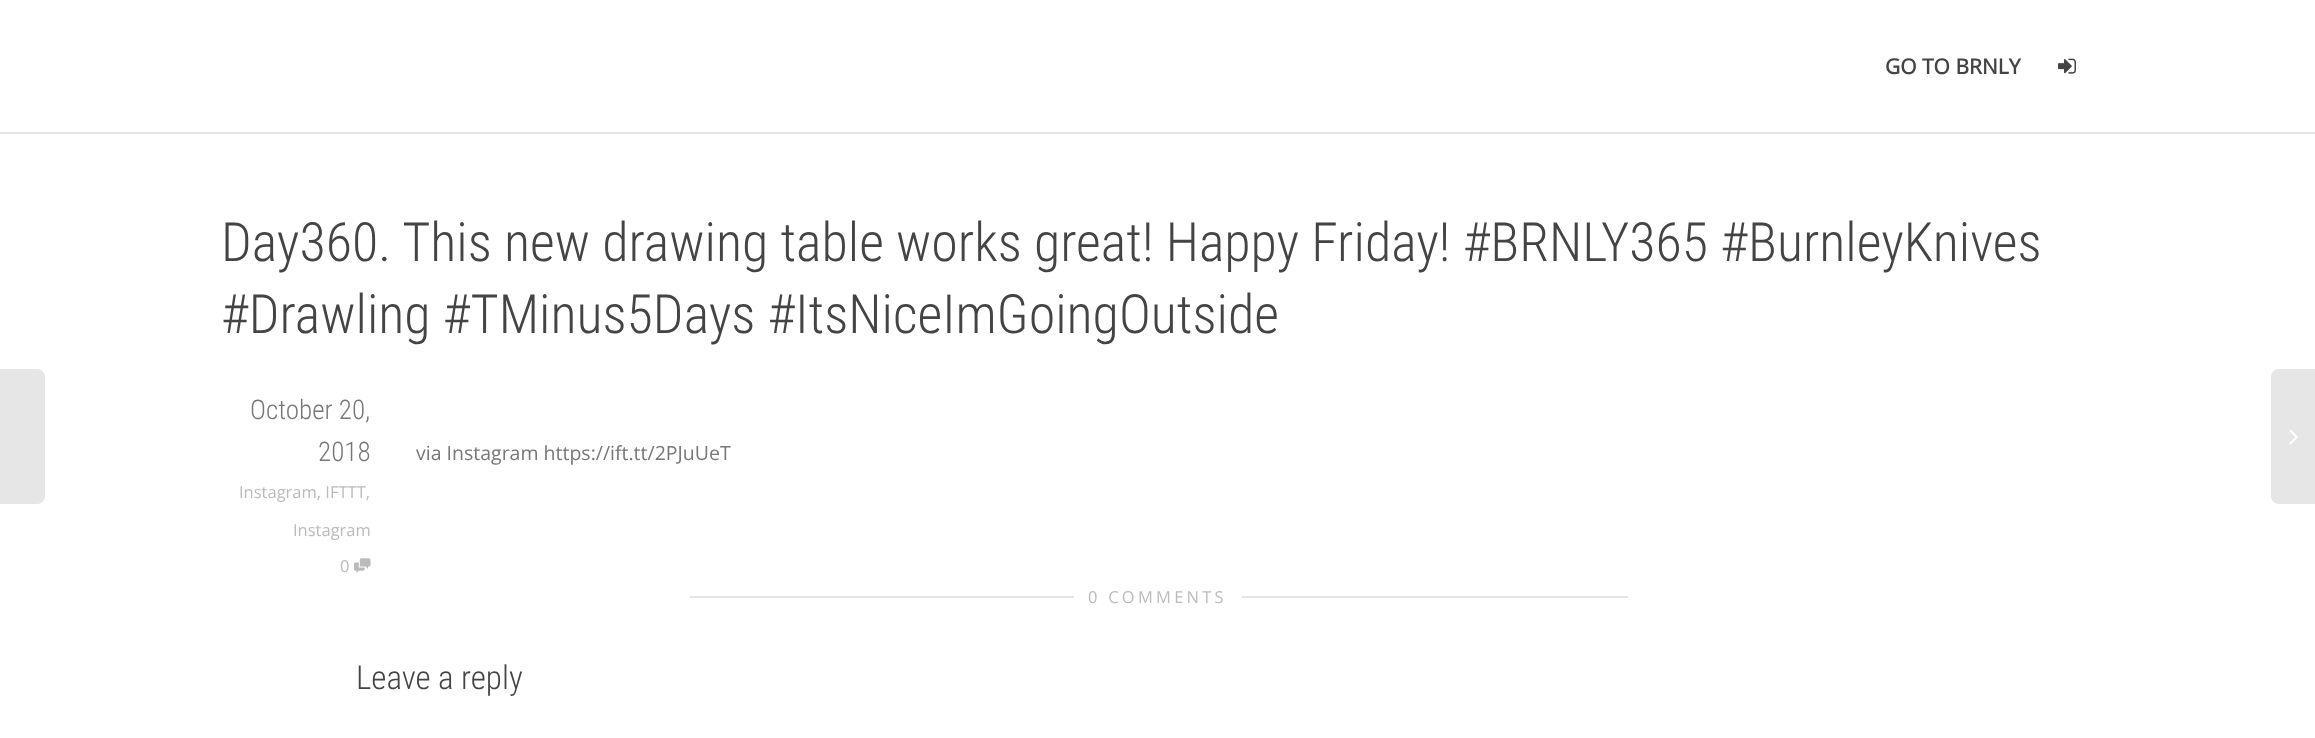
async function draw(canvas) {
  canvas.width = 2315
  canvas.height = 738
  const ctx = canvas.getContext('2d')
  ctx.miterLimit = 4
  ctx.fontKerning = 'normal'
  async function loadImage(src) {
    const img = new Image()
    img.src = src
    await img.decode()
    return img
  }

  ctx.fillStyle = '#fff'
  ctx.fillRect(0, 0, 2315, 738)
  ctx.fillStyle = '#e5e5e5'
  ctx.fillRect(0, 132, 2315, 2)
  ctx.font = 'bold 21px Open Sans'
  ctx.fillStyle = '#444'
  ctx.fillText('GO TO BRNLY', 1885, 74)
  ctx.drawImage(await loadImage('image0.png'), 2058, 58, 18, 16)
  ctx.font = '300 54px Roboto Condensed'
  ctx.fillText('Day360. This new drawing table works great! Happy Friday! #BRNLY365 #BurnleyKnives', 221, 261)
  ctx.fillText('#Drawling #TMinus5Days #ItsNiceImGoingOutside', 221, 333)
  ctx.fillStyle = '#e6e6e6'
  ctx.beginPath()
  ctx.moveTo(-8, 369)
  ctx.lineTo(37, 369)
  ctx.bezierCurveTo(41.5, 369, 45, 372.5, 45, 377)
  ctx.lineTo(45, 496)
  ctx.bezierCurveTo(45, 500.5, 41.5, 504, 37, 504)
  ctx.lineTo(-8, 504)
  ctx.closePath()
  ctx.fill()
  ctx.beginPath()
  ctx.moveTo(2279, 369)
  ctx.lineTo(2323, 369)
  ctx.lineTo(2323, 504)
  ctx.lineTo(2279, 504)
  ctx.bezierCurveTo(2274.5, 504, 2271, 500.5, 2271, 496)
  ctx.lineTo(2271, 377)
  ctx.bezierCurveTo(2271, 372.5, 2274.5, 369, 2279, 369)
  ctx.closePath()
  ctx.fill()
  ctx.drawImage(await loadImage('image1.png'), 2289, 429, 9, 16)
  ctx.font = '300 27px Roboto Condensed'
  ctx.fillStyle = '#777'
  ctx.fillText('October 20,', 250, 419)
  ctx.fillText('2018', 318, 461)
  ctx.font = '16.5px Open Sans'
  ctx.fillStyle = '#bbb'
  ctx.fillText('Instagram, IFTTT,', 239, 498)
  ctx.fillText('Instagram', 293, 536)
  ctx.fillText('0', 340, 572)
  ctx.drawImage(await loadImage('image2.png'), 354, 558, 17, 15)
  ctx.font = '19.5px Open Sans'
  ctx.fillStyle = '#777'
  ctx.fillText('via Instagram https://ift.tt/2PJuUeT', 416, 460)
  ctx.fillStyle = '#e5e5e5'
  ctx.fillRect(690, 596, 938, 2)
  ctx.fillStyle = '#fff'
  ctx.beginPath()
  ctx.roundRect(1074, 582, 168, 29, 3)
  ctx.fill()
  ctx.letterSpacing = '3.25px'
  ctx.font = '16.5px Open Sans'
  ctx.fillStyle = '#bbb'
  ctx.fillText('0 COMMENTS', 1088, 603)
  ctx.letterSpacing = '0px'
  ctx.font = '300 33px Roboto Condensed'
  ctx.fillStyle = '#444'
  ctx.fillText('Leave a reply', 356, 689)
}

draw(document.querySelector('canvas'))
